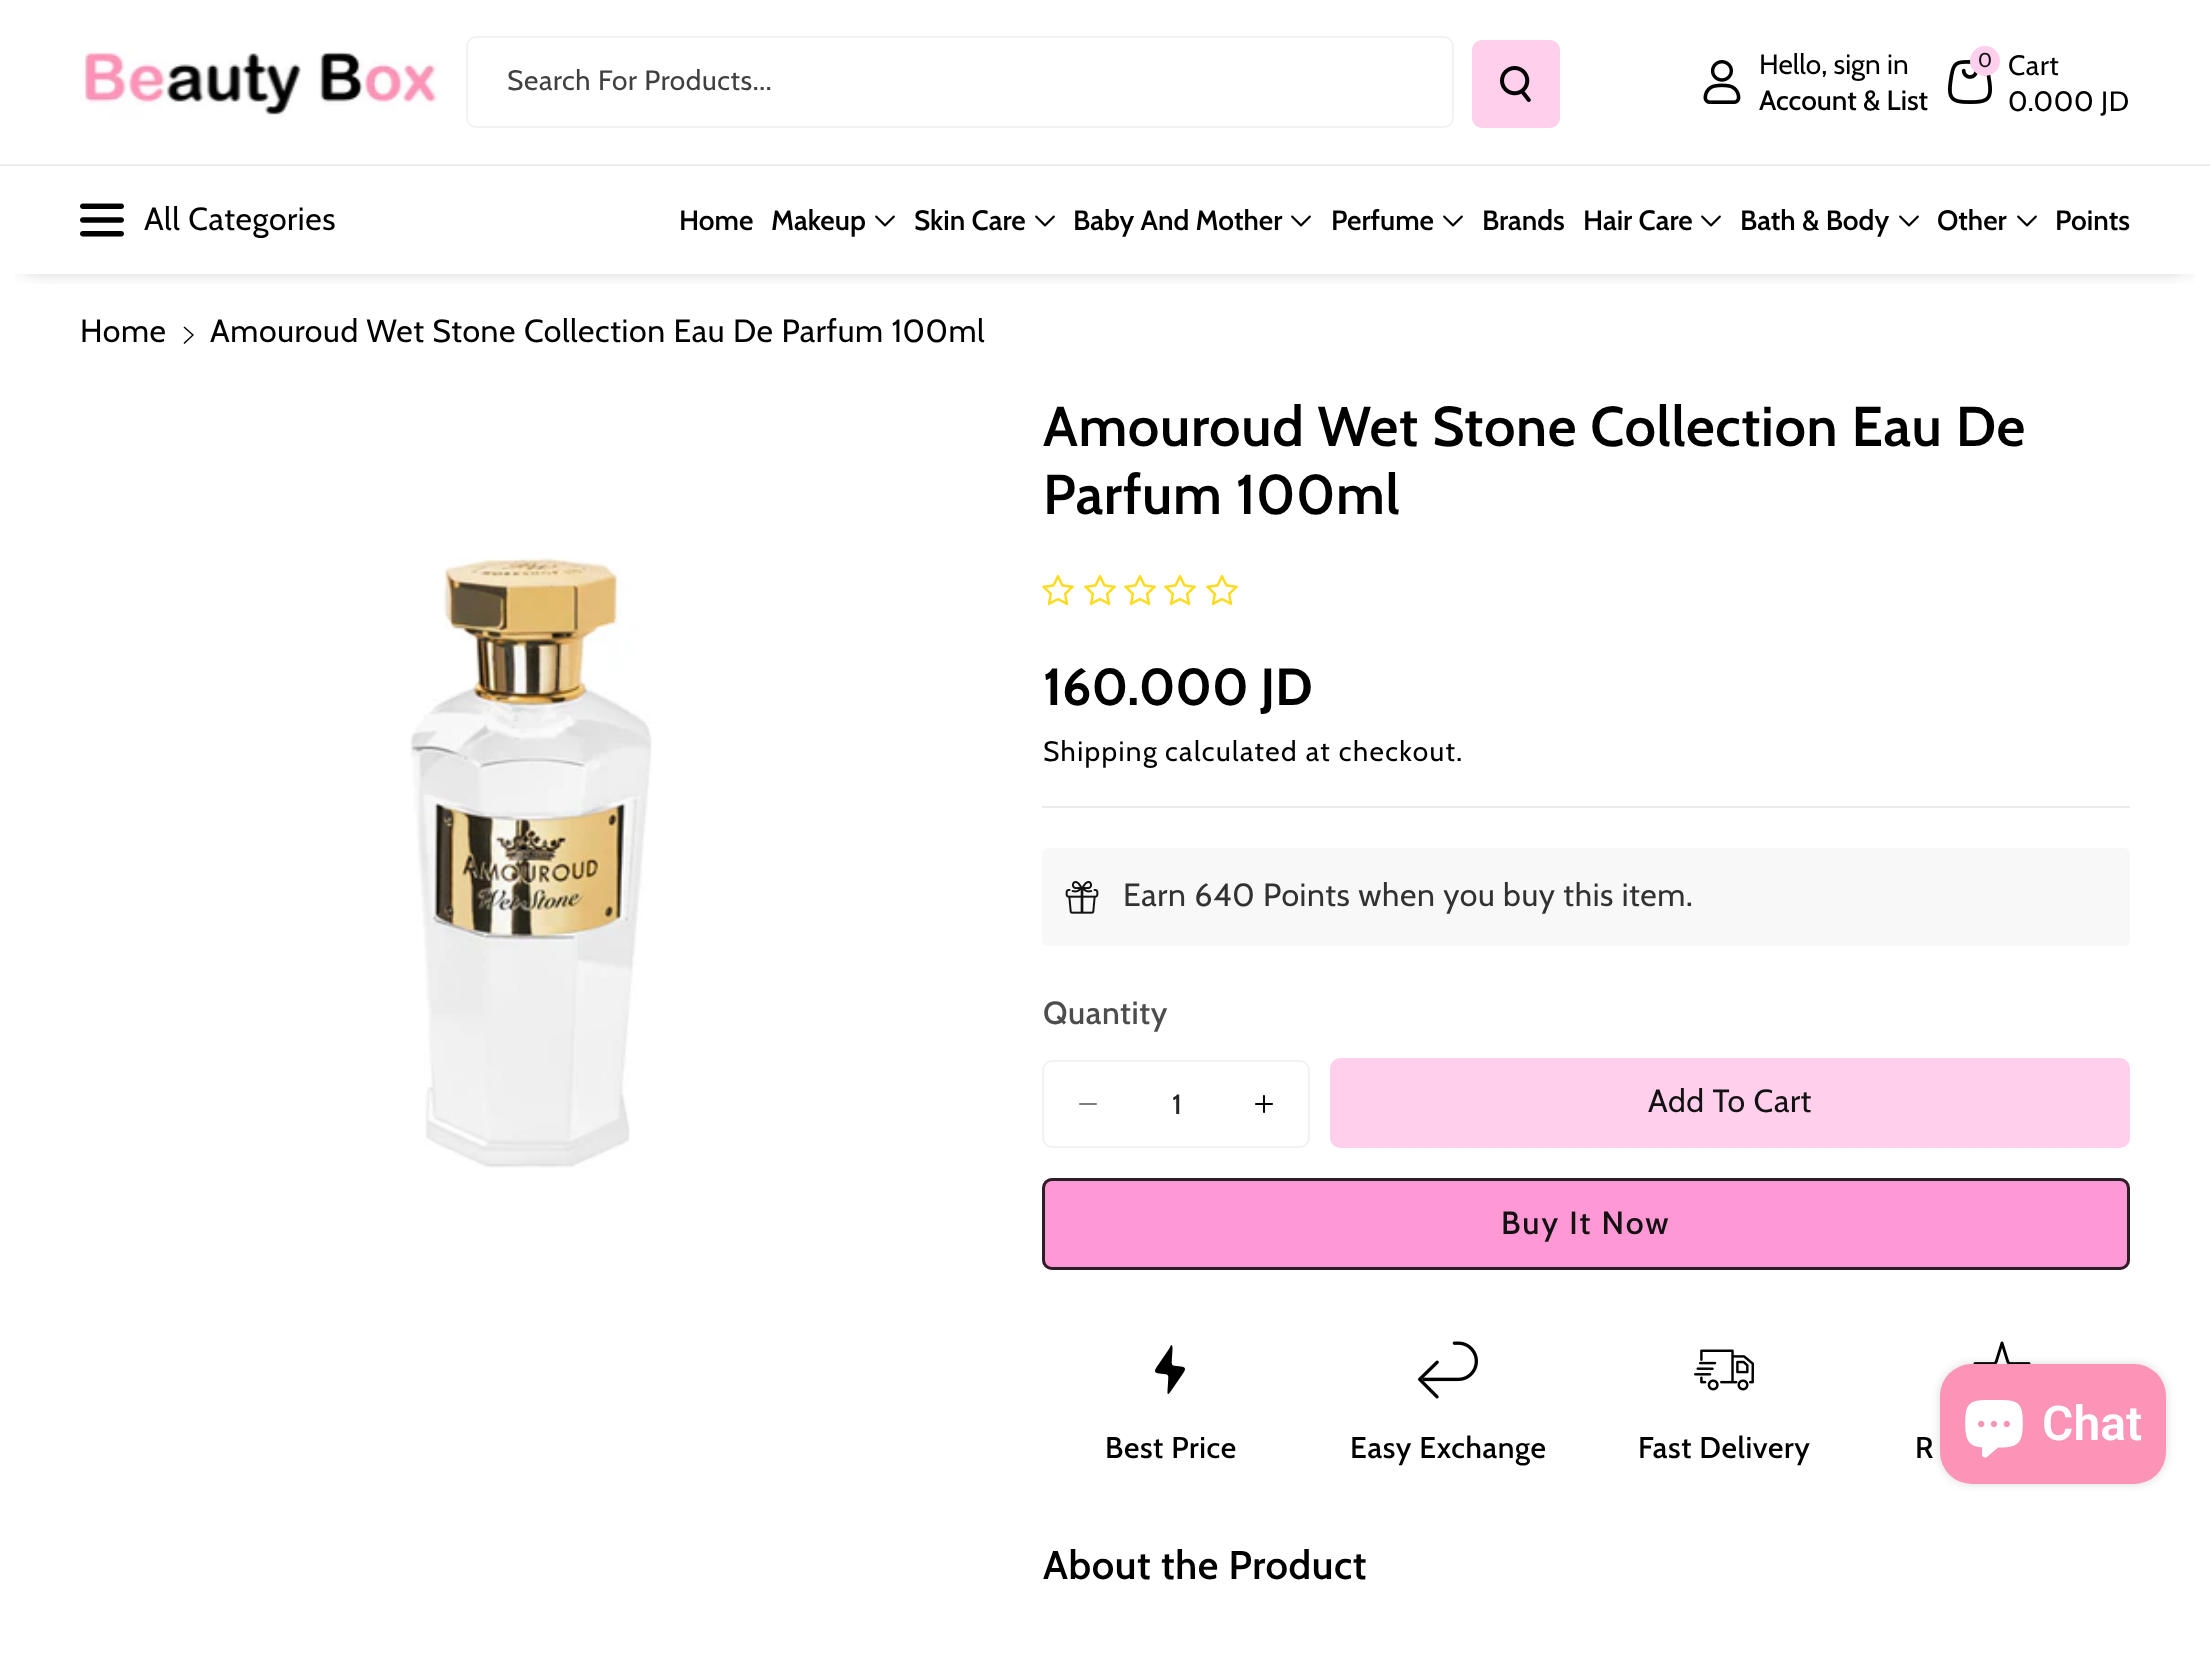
async function draw(canvas) {
  canvas.width = 2210
  canvas.height = 1653
  const ctx = canvas.getContext('2d')
  ctx.miterLimit = 4
  ctx.fontKerning = 'normal'
  async function loadImage(src) {
    const img = new Image()
    img.src = src
    await img.decode()
    return img
  }

  ctx.fillStyle = '#fff'
  ctx.fillRect(0, 0, 2210, 1653)
  ctx.save()
  ctx.beginPath()
  ctx.rect(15, 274, 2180, 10)
  ctx.clip()
  ctx.fillStyle = '#12121299'
  ctx.filter = 'blur(12px)'
  ctx.beginPath()
  ctx.rect(24, 36, 2162, 226)
  ctx.fill()
  ctx.filter = 'none'
  ctx.restore()
  ctx.drawImage(await loadImage('image0.png'), 80, 50, 359, 69)
  ctx.beginPath()
  ctx.roundRect(467, 37, 986, 90, 9)
  ctx.strokeStyle = '#f2f2f2'
  ctx.lineWidth = 2
  ctx.stroke()
  ctx.letterSpacing = '0.6px'
  ctx.font = '28px Cabin'
  ctx.fillStyle = '#404040'
  ctx.fillText('Search For Products...', 507, 90)
  ctx.fillStyle = '#ffcfeb'
  ctx.beginPath()
  ctx.roundRect(1472, 40, 88, 88, 10)
  ctx.fill()
  ctx.drawImage(await loadImage('image1.png'), 1500, 66, 31, 36)
  ctx.drawImage(await loadImage('image2.png'), 1703, 60, 38, 44)
  ctx.letterSpacing = '0px'
  ctx.fillStyle = '#000'
  ctx.fillText('Hello, sign in', 1759, 74)
  ctx.font = '500 28px Cabin'
  ctx.fillText('Account & List', 1759, 110)
  ctx.drawImage(await loadImage('image3.png'), 1948, 60, 44, 44)
  ctx.fillStyle = '#ffcfeb'
  ctx.beginPath()
  ctx.arc(1985, 61, 15, 0, 2 * Math.PI)
  ctx.fill()
  ctx.letterSpacing = '0.6px'
  ctx.font = '20px Cabin'
  ctx.fillStyle = '#121212'
  ctx.fillText('0', 1978, 67)
  ctx.font = '28px Cabin'
  ctx.fillStyle = '#000'
  ctx.fillText('Cart', 2008, 75)
  ctx.fillText('0.000 JD', 2008, 111)
  ctx.fillStyle = '#ededed'
  ctx.fillRect(0, 164, 2210, 2)
  ctx.drawImage(await loadImage('image4.png'), 80, 203, 44, 34)
  ctx.font = '32px Cabin'
  ctx.fillStyle = '#000'
  ctx.fillText('All Categories', 144, 230)
  ctx.letterSpacing = '0px'
  ctx.font = '600 28px Cabin'
  ctx.fillText('Home', 679, 230)
  ctx.fillText('Makeup', 771, 230)
  ctx.drawImage(await loadImage('image5.png'), 875, 215, 20, 12)
  ctx.fillText('Skin Care', 914, 230)
  ctx.drawImage(await loadImage('image5.png'), 1035, 215, 20, 12)
  ctx.fillText('Baby And Mother', 1073, 230)
  ctx.drawImage(await loadImage('image5.png'), 1291, 215, 20, 12)
  ctx.fillText('Perfume', 1331, 230)
  ctx.drawImage(await loadImage('image5.png'), 1443, 215, 20, 12)
  ctx.fillText('Brands', 1482, 230)
  ctx.fillText('Hair Care', 1583, 230)
  ctx.drawImage(await loadImage('image5.png'), 1701, 215, 20, 12)
  ctx.fillText('Bath & Body', 1740, 230)
  ctx.drawImage(await loadImage('image5.png'), 1899, 215, 20, 12)
  ctx.fillText('Other', 1937, 230)
  ctx.drawImage(await loadImage('image5.png'), 2017, 215, 20, 12)
  ctx.fillText('Points', 2055, 230)
  ctx.letterSpacing = '0.6px'
  ctx.font = '32px Cabin'
  ctx.fillText('Home', 80, 342)
  ctx.beginPath()
  ctx.moveTo(183.5, 343)
  ctx.lineTo(184.5, 344)
  ctx.lineTo(194, 335)
  ctx.lineTo(184.5, 326.5)
  ctx.lineTo(183.5, 327.5)
  ctx.lineTo(192, 335)
  ctx.closePath()
  ctx.fill()
  ctx.fillText('Amouroud Wet Stone Collection Eau De Parfum 100ml', 210, 342)
  ctx.drawImage(await loadImage('image6.png'), 410, 557, 242, 611)
  ctx.font = '600 56px Cabin'
  ctx.fillText('Amouroud Wet Stone Collection Eau De', 1043, 446)
  ctx.fillText('Parfum 100ml', 1043, 514)
  ctx.drawImage(await loadImage('image7.png'), 1042, 574, 32, 32)
  ctx.drawImage(await loadImage('image7.png'), 1084, 574, 32, 32)
  ctx.drawImage(await loadImage('image7.png'), 1124, 574, 32, 32)
  ctx.drawImage(await loadImage('image7.png'), 1164, 574, 32, 32)
  ctx.drawImage(await loadImage('image7.png'), 1206, 574, 32, 32)
  ctx.fillStyle = '#ebebeb'
  ctx.fillRect(1042, 806, 1088, 2)
  ctx.letterSpacing = '0px'
  ctx.font = 'bold 52px Cabin'
  ctx.fillStyle = '#000'
  ctx.fillText('160.000 JD', 1043, 705)
  ctx.letterSpacing = '1.4px'
  ctx.font = '28px Cabin'
  ctx.fillText('Shipping', 1043, 761)
  ctx.fillText('calculated at checkout.', 1165, 761)
  ctx.fillStyle = '#f8f8f8'
  ctx.beginPath()
  ctx.roundRect(1042, 848, 1088, 98, 6)
  ctx.fill()
  ctx.drawImage(await loadImage('image8.png'), 1065, 881, 34, 33)
  ctx.letterSpacing = '0.6px'
  ctx.font = '32px Cabin'
  ctx.fillStyle = '#323232'
  ctx.fillText('Earn 640 Points when you buy this item.', 1123, 906)
  ctx.font = '500 32px Cabin'
  ctx.fillStyle = '#4d4d4d'
  ctx.fillText('Quantity', 1043, 1024)
  ctx.drawImage(await loadImage('image9.png'), 1079, 1103, 18, 2)
  ctx.drawImage(await loadImage('image10.png'), 1255, 1095, 18, 18)
  ctx.beginPath()
  ctx.roundRect(1043, 1061, 266, 86, 9)
  ctx.stroke()
  ctx.letterSpacing = '0px'
  ctx.font = '500 28px Cabin'
  ctx.fillStyle = '#262626'
  ctx.fillText('1', 1172, 1114)
  ctx.fillStyle = '#ffcfeb'
  ctx.beginPath()
  ctx.roundRect(1330, 1058, 800, 90, 10)
  ctx.fill()
  ctx.letterSpacing = '0.6px'
  ctx.font = '32px Cabin'
  ctx.fillStyle = '#121212'
  ctx.fillText('Add To Cart', 1648, 1112)
  ctx.fillStyle = '#ff98d4'
  ctx.beginPath()
  ctx.roundRect(1042, 1178, 1088, 92, 10)
  ctx.fill()
  ctx.beginPath()
  ctx.roundRect(1043, 1179, 1086, 90, 9)
  ctx.strokeStyle = '#ff98d4'
  ctx.stroke()
  ctx.beginPath()
  ctx.roundRect(1043.5, 1179.5, 1085, 89, 8.5)
  ctx.strokeStyle = '#121212e6'
  ctx.lineWidth = 3
  ctx.stroke()
  ctx.letterSpacing = '2px'
  ctx.font = '500 32px Cabin'
  ctx.fillStyle = '#121212'
  ctx.fillText('Buy It Now', 1501, 1234)
  ctx.drawImage(await loadImage('image11.png'), 1155, 1344, 30, 50)
  ctx.letterSpacing = '0.6px'
  ctx.font = '500 30px Cabin'
  ctx.fillStyle = '#000'
  ctx.fillText('Best Price', 1105, 1458)
  ctx.drawImage(await loadImage('image12.png'), 1418, 1341, 60, 58)
  ctx.fillText('Easy Exchange', 1350, 1458)
  ctx.drawImage(await loadImage('image13.png'), 1694, 1349, 60, 42)
  ctx.fillText('Fast Delivery', 1638, 1458)
  ctx.drawImage(await loadImage('image14.png'), 1973, 1341, 58, 23)
  ctx.fillText('R', 1915, 1458)
  ctx.font = '600 40px Cabin'
  ctx.fillText('About the Product', 1043, 1579)
  ctx.fillStyle = '#00000026'
  ctx.filter = 'blur(5px)'
  ctx.beginPath()
  ctx.roundRect(1940, 1364, 226, 120, 32)
  ctx.fill()
  ctx.filter = 'none'
  ctx.fillStyle = '#fc94b7'
  ctx.beginPath()
  ctx.roundRect(1940, 1364, 226, 120, 32)
  ctx.fill()
  ctx.drawImage(await loadImage('image15.png'), 1965, 1400, 58, 58)
  ctx.letterSpacing = '0px'
  ctx.font = '600 48px Roboto'
  ctx.fillStyle = '#fff'
  ctx.fillText('Chat', 2042, 1440)
}

draw(document.querySelector('canvas'))
